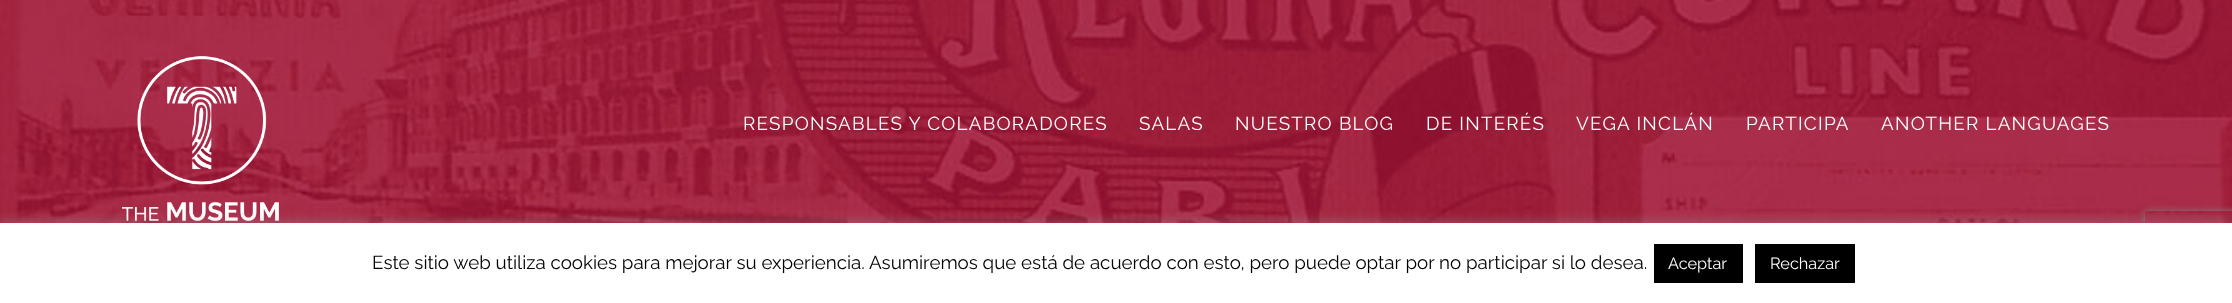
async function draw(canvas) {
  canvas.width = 2232
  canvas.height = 303
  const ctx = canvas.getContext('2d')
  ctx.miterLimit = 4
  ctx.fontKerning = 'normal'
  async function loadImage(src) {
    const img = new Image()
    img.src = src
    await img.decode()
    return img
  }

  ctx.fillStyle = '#fff'
  ctx.fillRect(0, 0, 2232, 303)
  ctx.drawImage(await loadImage('image0.png'), 0, 0, 2232, 223)
  ctx.drawImage(await loadImage('image1.png'), 122, 56, 157, 166)
  ctx.letterSpacing = '1.25px'
  ctx.font = '100 18.75px Raleway'
  ctx.fillText('RESPONSABLES Y COLABORADORES', 743, 130)
  ctx.fillText('SALAS', 1139, 130)
  ctx.fillText('NUESTRO BLOG', 1235, 130)
  ctx.fillText('DE INTERÉS', 1426, 130)
  ctx.fillText('VEGA INCLÁN', 1576, 130)
  ctx.fillText('PARTICIPA', 1746, 130)
  ctx.fillText('ANOTHER LANGUAGES', 1881, 130)
  ctx.fillStyle = '#acabab4d'
  ctx.filter = 'blur(6px)'
  ctx.beginPath()
  ctx.rect(0, 221, 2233, 82)
  ctx.fill()
  ctx.filter = 'none'
  ctx.save()
  ctx.beginPath()
  ctx.moveTo(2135, 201)
  ctx.lineTo(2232, 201)
  ctx.lineTo(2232, 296)
  ctx.lineTo(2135, 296)
  ctx.closePath()
  ctx.moveTo(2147.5, 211)
  ctx.lineTo(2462.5, 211)
  ctx.bezierCurveTo(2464, 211, 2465, 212, 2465, 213.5)
  ctx.lineTo(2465, 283.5)
  ctx.bezierCurveTo(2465, 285, 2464, 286, 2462.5, 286)
  ctx.lineTo(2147.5, 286)
  ctx.bezierCurveTo(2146, 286, 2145, 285, 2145, 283.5)
  ctx.lineTo(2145, 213.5)
  ctx.bezierCurveTo(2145, 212, 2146, 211, 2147.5, 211)
  ctx.closePath()
  ctx.clip('evenodd')
  ctx.fillStyle = '#808080'
  ctx.filter = 'blur(3px)'
  ctx.beginPath()
  ctx.roundRect(2145, 211, 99, 75, 2.5)
  ctx.fill()
  ctx.filter = 'none'
  ctx.restore()
  ctx.fillStyle = '#fff'
  ctx.fillRect(0, 223, 2232, 80)
  ctx.letterSpacing = '0px'
  ctx.fillStyle = '#000'
  ctx.fillText('Este sitio web utiliza cookies para mejorar su experiencia. Asumiremos que está de acuerdo con esto, pero puede optar por no participar si lo desea.', 372, 269)
  ctx.fillRect(1654, 244, 89, 39)
  ctx.font = '100 16.25px Raleway'
  ctx.fillStyle = '#fff'
  ctx.fillText('Aceptar', 1668, 269)
  ctx.fillStyle = '#000'
  ctx.fillRect(1755, 244, 100, 39)
  ctx.fillStyle = '#fff'
  ctx.fillText('Rechazar', 1770, 269)
}

draw(document.querySelector('canvas'))
